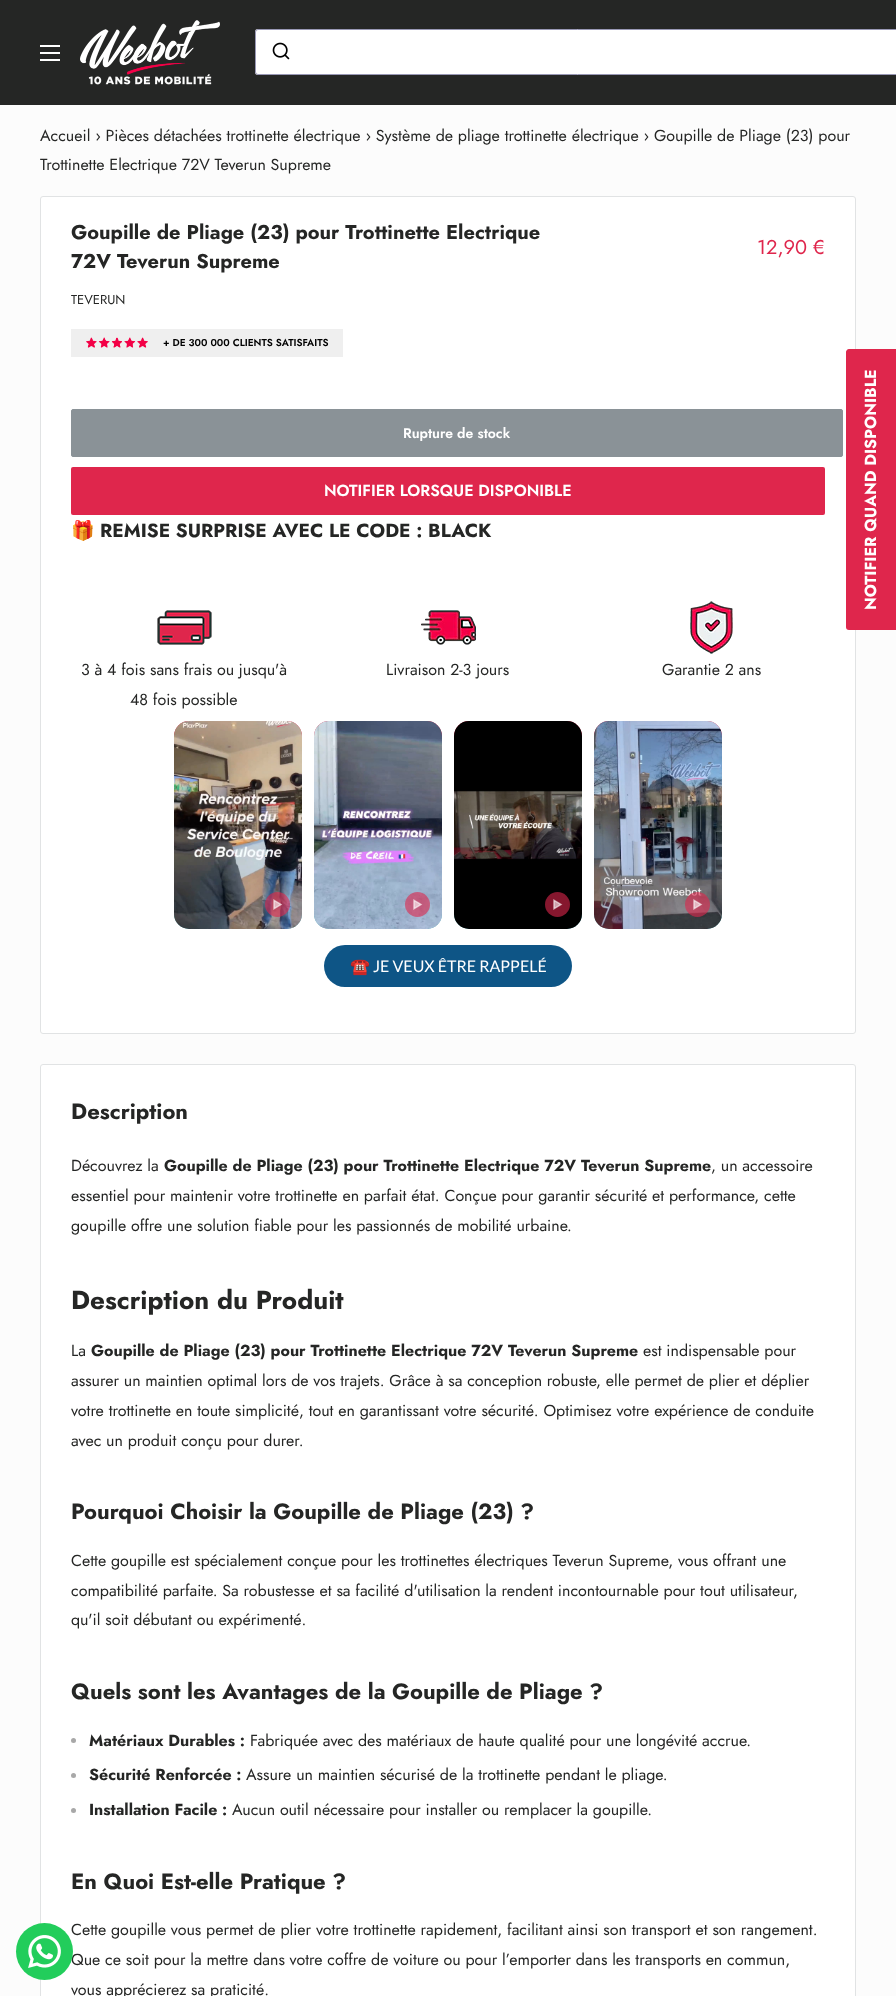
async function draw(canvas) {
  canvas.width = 896
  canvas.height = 1996
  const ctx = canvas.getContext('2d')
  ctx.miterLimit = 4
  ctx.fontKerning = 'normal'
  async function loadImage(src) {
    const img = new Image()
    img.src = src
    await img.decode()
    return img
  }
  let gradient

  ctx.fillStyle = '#fcfcfc'
  ctx.fillRect(0, 0, 896, 1996)
  ctx.fillStyle = '#252625'
  ctx.fillRect(0, 0, 896, 105)
  ctx.drawImage(await loadImage('image0.png'), 40, 45, 20, 16)
  ctx.drawImage(await loadImage('image1.png'), 80, 20, 140, 65)
  ctx.fillStyle = '#fff'
  ctx.beginPath()
  ctx.roundRect(255, 29, 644, 46, 3)
  ctx.fill()
  ctx.beginPath()
  ctx.roundRect(255.5, 29.5, 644, 45, 2.5)
  ctx.strokeStyle = '#807ea3cc'
  ctx.stroke()
  ctx.drawImage(await loadImage('image2.png'), 272, 42, 18, 18)
  ctx.font = '16px Jost'
  ctx.fillStyle = '#252625'
  ctx.fillText('Accueil › Pièces détachées trottinette électrique › Système de pliage trottinette électrique › Goupille de Pliage (23) pour', 40, 141)
  ctx.fillText('Trottinette Electrique 72V Teverun Supreme', 40, 170)
  ctx.fillStyle = '#fff'
  ctx.beginPath()
  ctx.roundRect(40.5, 196.5, 815, 837, 2.5)
  ctx.fill()
  ctx.strokeStyle = '#e1e3e4'
  ctx.stroke()
  ctx.font = 'bold 20px Jost'
  ctx.fillStyle = '#252625'
  ctx.fillText('Goupille de Pliage (23) pour Trottinette Electrique', 71, 239)
  ctx.fillText('72V Teverun Supreme', 71, 268)
  ctx.font = '20px Jost'
  ctx.fillStyle = '#df264c'
  ctx.fillText('12,90 €', 757, 254)
  ctx.font = '13px Jost'
  ctx.fillStyle = '#252625'
  ctx.fillText('TEVERUN', 71, 304)
  ctx.fillStyle = '#efefef'
  ctx.fillRect(71, 329, 272, 28)
  ctx.drawImage(await loadImage('image3.png'), 86, 337, 62, 11)
  ctx.font = '600 10px Jost'
  ctx.fillStyle = '#000'
  ctx.fillText('+ DE 300 000 CLIENTS SATISFAITS', 163, 346)
  ctx.fillStyle = '#8a9297'
  ctx.beginPath()
  ctx.roundRect(71.5, 409.5, 771, 47, 1.5)
  ctx.fill()
  ctx.strokeStyle = '#8a9297'
  ctx.stroke()
  ctx.font = '600 14px Jost'
  ctx.fillStyle = '#fff'
  ctx.fillText('Rupture de stock', 403, 438)
  ctx.fillStyle = '#df264c'
  ctx.beginPath()
  ctx.roundRect(71, 467, 754, 48, 2)
  ctx.fill()
  ctx.font = '600 16px Jost'
  ctx.fillStyle = '#fff'
  ctx.fillText('NOTIFIER LORSQUE DISPONIBLE', 324, 496)
  ctx.font = 'bold 19px Noto Color Emoji'
  ctx.fillStyle = '#252625'
  ctx.fillText('🎁', 71, 537)
  ctx.font = 'bold 19px Jost'
  ctx.fillText('REMISE SURPRISE AVEC LE CODE : BLACK', 100, 537)
  ctx.drawImage(await loadImage('image4.png'), 157, 610, 55, 35)
  ctx.font = '16px Jost'
  ctx.fillText('3 à 4 fois sans frais ou jusqu\'à', 81, 675)
  ctx.fillText('48 fois possible', 130, 705)
  ctx.drawImage(await loadImage('image5.png'), 421, 610, 55, 35)
  ctx.fillText('Livraison 2-3 jours', 386, 675)
  ctx.drawImage(await loadImage('image6.png'), 690, 601, 43, 53)
  ctx.fillText('Garantie 2 ans', 662, 675)
  gradient = ctx.createLinearGradient(238, 929, 238, 721)
  gradient.addColorStop(0.2, '#63b6bf')
  gradient.addColorStop(0.8, '#df264c')
  ctx.fillStyle = gradient
  ctx.beginPath()
  ctx.roundRect(174, 721, 128, 208, 15)
  ctx.fill()
  ctx.drawImage(await loadImage('image7.png'), 174, 721, 128, 208)
  ctx.fillStyle = '#df264c99'
  ctx.beginPath()
  ctx.arc(277.5, 904.5, 12.5, 0, 2 * Math.PI)
  ctx.fill()
  ctx.drawImage(await loadImage('image8.png'), 273, 899, 10, 11)
  gradient = ctx.createLinearGradient(378, 929, 378, 721)
  gradient.addColorStop(0.2, '#63b6bf')
  gradient.addColorStop(0.8, '#df264c')
  ctx.fillStyle = gradient
  ctx.beginPath()
  ctx.roundRect(314, 721, 128, 208, 15)
  ctx.fill()
  ctx.drawImage(await loadImage('image9.png'), 314, 721, 128, 208)
  ctx.fillStyle = '#df264c99'
  ctx.beginPath()
  ctx.arc(417.5, 904.5, 12.5, 0, 2 * Math.PI)
  ctx.fill()
  ctx.drawImage(await loadImage('image10.png'), 413, 899, 10, 11)
  gradient = ctx.createLinearGradient(518, 929, 518, 721)
  gradient.addColorStop(0.2, '#63b6bf')
  gradient.addColorStop(0.8, '#df264c')
  ctx.fillStyle = gradient
  ctx.beginPath()
  ctx.roundRect(454, 721, 128, 208, 15)
  ctx.fill()
  ctx.drawImage(await loadImage('image11.png'), 454, 721, 128, 208)
  ctx.fillStyle = '#86172e'
  ctx.beginPath()
  ctx.arc(557.5, 904.5, 12.5, 0, 2 * Math.PI)
  ctx.fill()
  ctx.drawImage(await loadImage('image12.png'), 553, 899, 10, 11)
  gradient = ctx.createLinearGradient(658, 929, 658, 721)
  gradient.addColorStop(0.2, '#63b6bf')
  gradient.addColorStop(0.8, '#df264c')
  ctx.fillStyle = gradient
  ctx.beginPath()
  ctx.roundRect(594, 721, 128, 208, 15)
  ctx.fill()
  ctx.drawImage(await loadImage('image13.png'), 594, 721, 128, 208)
  ctx.fillStyle = '#df264c99'
  ctx.beginPath()
  ctx.arc(697.5, 904.5, 12.5, 0, 2 * Math.PI)
  ctx.fill()
  ctx.drawImage(await loadImage('image14.png'), 693, 899, 10, 11)
  ctx.fillStyle = '#0e5586'
  ctx.beginPath()
  ctx.roundRect(324, 945, 248, 42, 21)
  ctx.fill()
  ctx.font = '16px Noto Color Emoji'
  ctx.fillStyle = '#fff'
  ctx.fillText('☎️', 350, 972)
  ctx.font = '16px Lato'
  ctx.fillText('JE VEUX ÊTRE RAPPELÉ', 373, 972)
  ctx.beginPath()
  ctx.roundRect(40.5, 1064.5, 815, 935, 2.5)
  ctx.fill()
  ctx.strokeStyle = '#e1e3e4'
  ctx.stroke()
  ctx.font = 'bold 22px Jost'
  ctx.fillStyle = '#252625'
  ctx.fillText('Description', 71, 1119)
  ctx.font = '16px Jost'
  ctx.fillText('Découvrez la', 71, 1171)
  ctx.font = 'bold 16px Jost'
  ctx.fillText('Goupille de Pliage (23) pour Trottinette Electrique 72V Teverun Supreme', 164, 1171)
  ctx.font = '16px Jost'
  ctx.fillText(', un accessoire', 711, 1171)
  ctx.fillText('essentiel pour maintenir votre trottinette en parfait état. Conçue pour garantir sécurité et performance, cette', 71, 1201)
  ctx.fillText('goupille offre une solution fiable pour les passionnés de mobilité urbaine.', 71, 1231)
  ctx.font = 'bold 26px Jost'
  ctx.fillText('Description du Produit', 71, 1309)
  ctx.font = '16px Jost'
  ctx.fillText('La', 71, 1356)
  ctx.font = 'bold 16px Jost'
  ctx.fillText('Goupille de Pliage (23) pour Trottinette Electrique 72V Teverun Supreme', 91, 1356)
  ctx.font = '16px Jost'
  ctx.fillText('est indispensable pour', 643, 1356)
  ctx.fillText('assurer un maintien optimal lors de vos trajets. Grâce à sa conception robuste, elle permet de plier et déplier', 71, 1386)
  ctx.fillText('votre trottinette en toute simplicité, tout en garantissant votre sécurité. Optimisez votre expérience de conduite', 71, 1416)
  ctx.fillText('avec un produit conçu pour durer.', 71, 1446)
  ctx.font = 'bold 22px Jost'
  ctx.fillText('Pourquoi Choisir la Goupille de Pliage (23) ?', 71, 1519)
  ctx.font = '16px Jost'
  ctx.fillText('Cette goupille est spécialement conçue pour les trottinettes électriques Teverun Supreme, vous offrant une', 71, 1566)
  ctx.fillText('compatibilité parfaite. Sa robustesse et sa facilité d\'utilisation la rendent incontournable pour tout utilisateur,', 71, 1596)
  ctx.fillText('qu\'il soit débutant ou expérimenté.', 71, 1625)
  ctx.font = 'bold 22px Jost'
  ctx.fillText('Quels sont les Avantages de la Goupille de Pliage ?', 71, 1699)
  ctx.fillStyle = '#a8a8a8'
  ctx.beginPath()
  ctx.arc(73.5, 1740.5, 2.5, 0, 2 * Math.PI)
  ctx.fill()
  ctx.font = 'bold 16px Jost'
  ctx.fillStyle = '#252625'
  ctx.fillText('Matériaux Durables :', 89, 1746)
  ctx.font = '16px Jost'
  ctx.fillText('Fabriquée avec des matériaux de haute qualité pour une longévité accrue.', 250, 1746)
  ctx.fillStyle = '#a8a8a8'
  ctx.beginPath()
  ctx.arc(73.5, 1775.5, 2.5, 0, 2 * Math.PI)
  ctx.fill()
  ctx.font = 'bold 16px Jost'
  ctx.fillStyle = '#252625'
  ctx.fillText('Sécurité Renforcée :', 89, 1780)
  ctx.font = '16px Jost'
  ctx.fillText('Assure un maintien sécurisé de la trottinette pendant le pliage.', 246, 1780)
  ctx.fillStyle = '#a8a8a8'
  ctx.beginPath()
  ctx.arc(73.5, 1810.5, 2.5, 0, 2 * Math.PI)
  ctx.fill()
  ctx.font = 'bold 16px Jost'
  ctx.fillStyle = '#252625'
  ctx.fillText('Installation Facile :', 89, 1815)
  ctx.font = '16px Jost'
  ctx.fillText('Aucun outil nécessaire pour installer ou remplacer la goupille.', 232, 1815)
  ctx.font = 'bold 22px Jost'
  ctx.fillText('En Quoi Est-elle Pratique ?', 71, 1889)
  ctx.font = '16px Jost'
  ctx.fillText('Cette goupille vous permet de plier votre trottinette rapidement, facilitant ainsi son transport et son rangement.', 71, 1935)
  ctx.fillText('Que ce soit pour la mettre dans votre coffre de voiture ou pour l’emporter dans les transports en commun,', 71, 1965)
  ctx.fillText('vous apprécierez sa praticité.', 71, 1995)
  ctx.fillStyle = '#df264c'
  ctx.beginPath()
  ctx.moveTo(846, 627)
  ctx.lineTo(846, 352)
  ctx.bezierCurveTo(846, 351, 847, 349, 849, 349)
  ctx.lineTo(896, 349)
  ctx.lineTo(896, 630)
  ctx.lineTo(849, 630)
  ctx.bezierCurveTo(847, 630, 846, 629, 846, 627)
  ctx.closePath()
  ctx.fill()
  ctx.font = 'bold 16px Jost'
  ctx.fillStyle = '#fff'
  ctx.save()
  ctx.translate(876, 610)
  ctx.rotate(-90 * Math.PI / 180)
  ctx.fillText('NOTIFIER QUAND DISPONIBLE', 0, 0)
  ctx.restore()
  ctx.fillStyle = '#22cd5b'
  ctx.beginPath()
  ctx.arc(44.5, 1951.5, 28.5, 0, 2 * Math.PI)
  ctx.fill()
  ctx.drawImage(await loadImage('image15.png'), 28, 1935, 33, 33)
}

draw(document.querySelector('canvas'))
